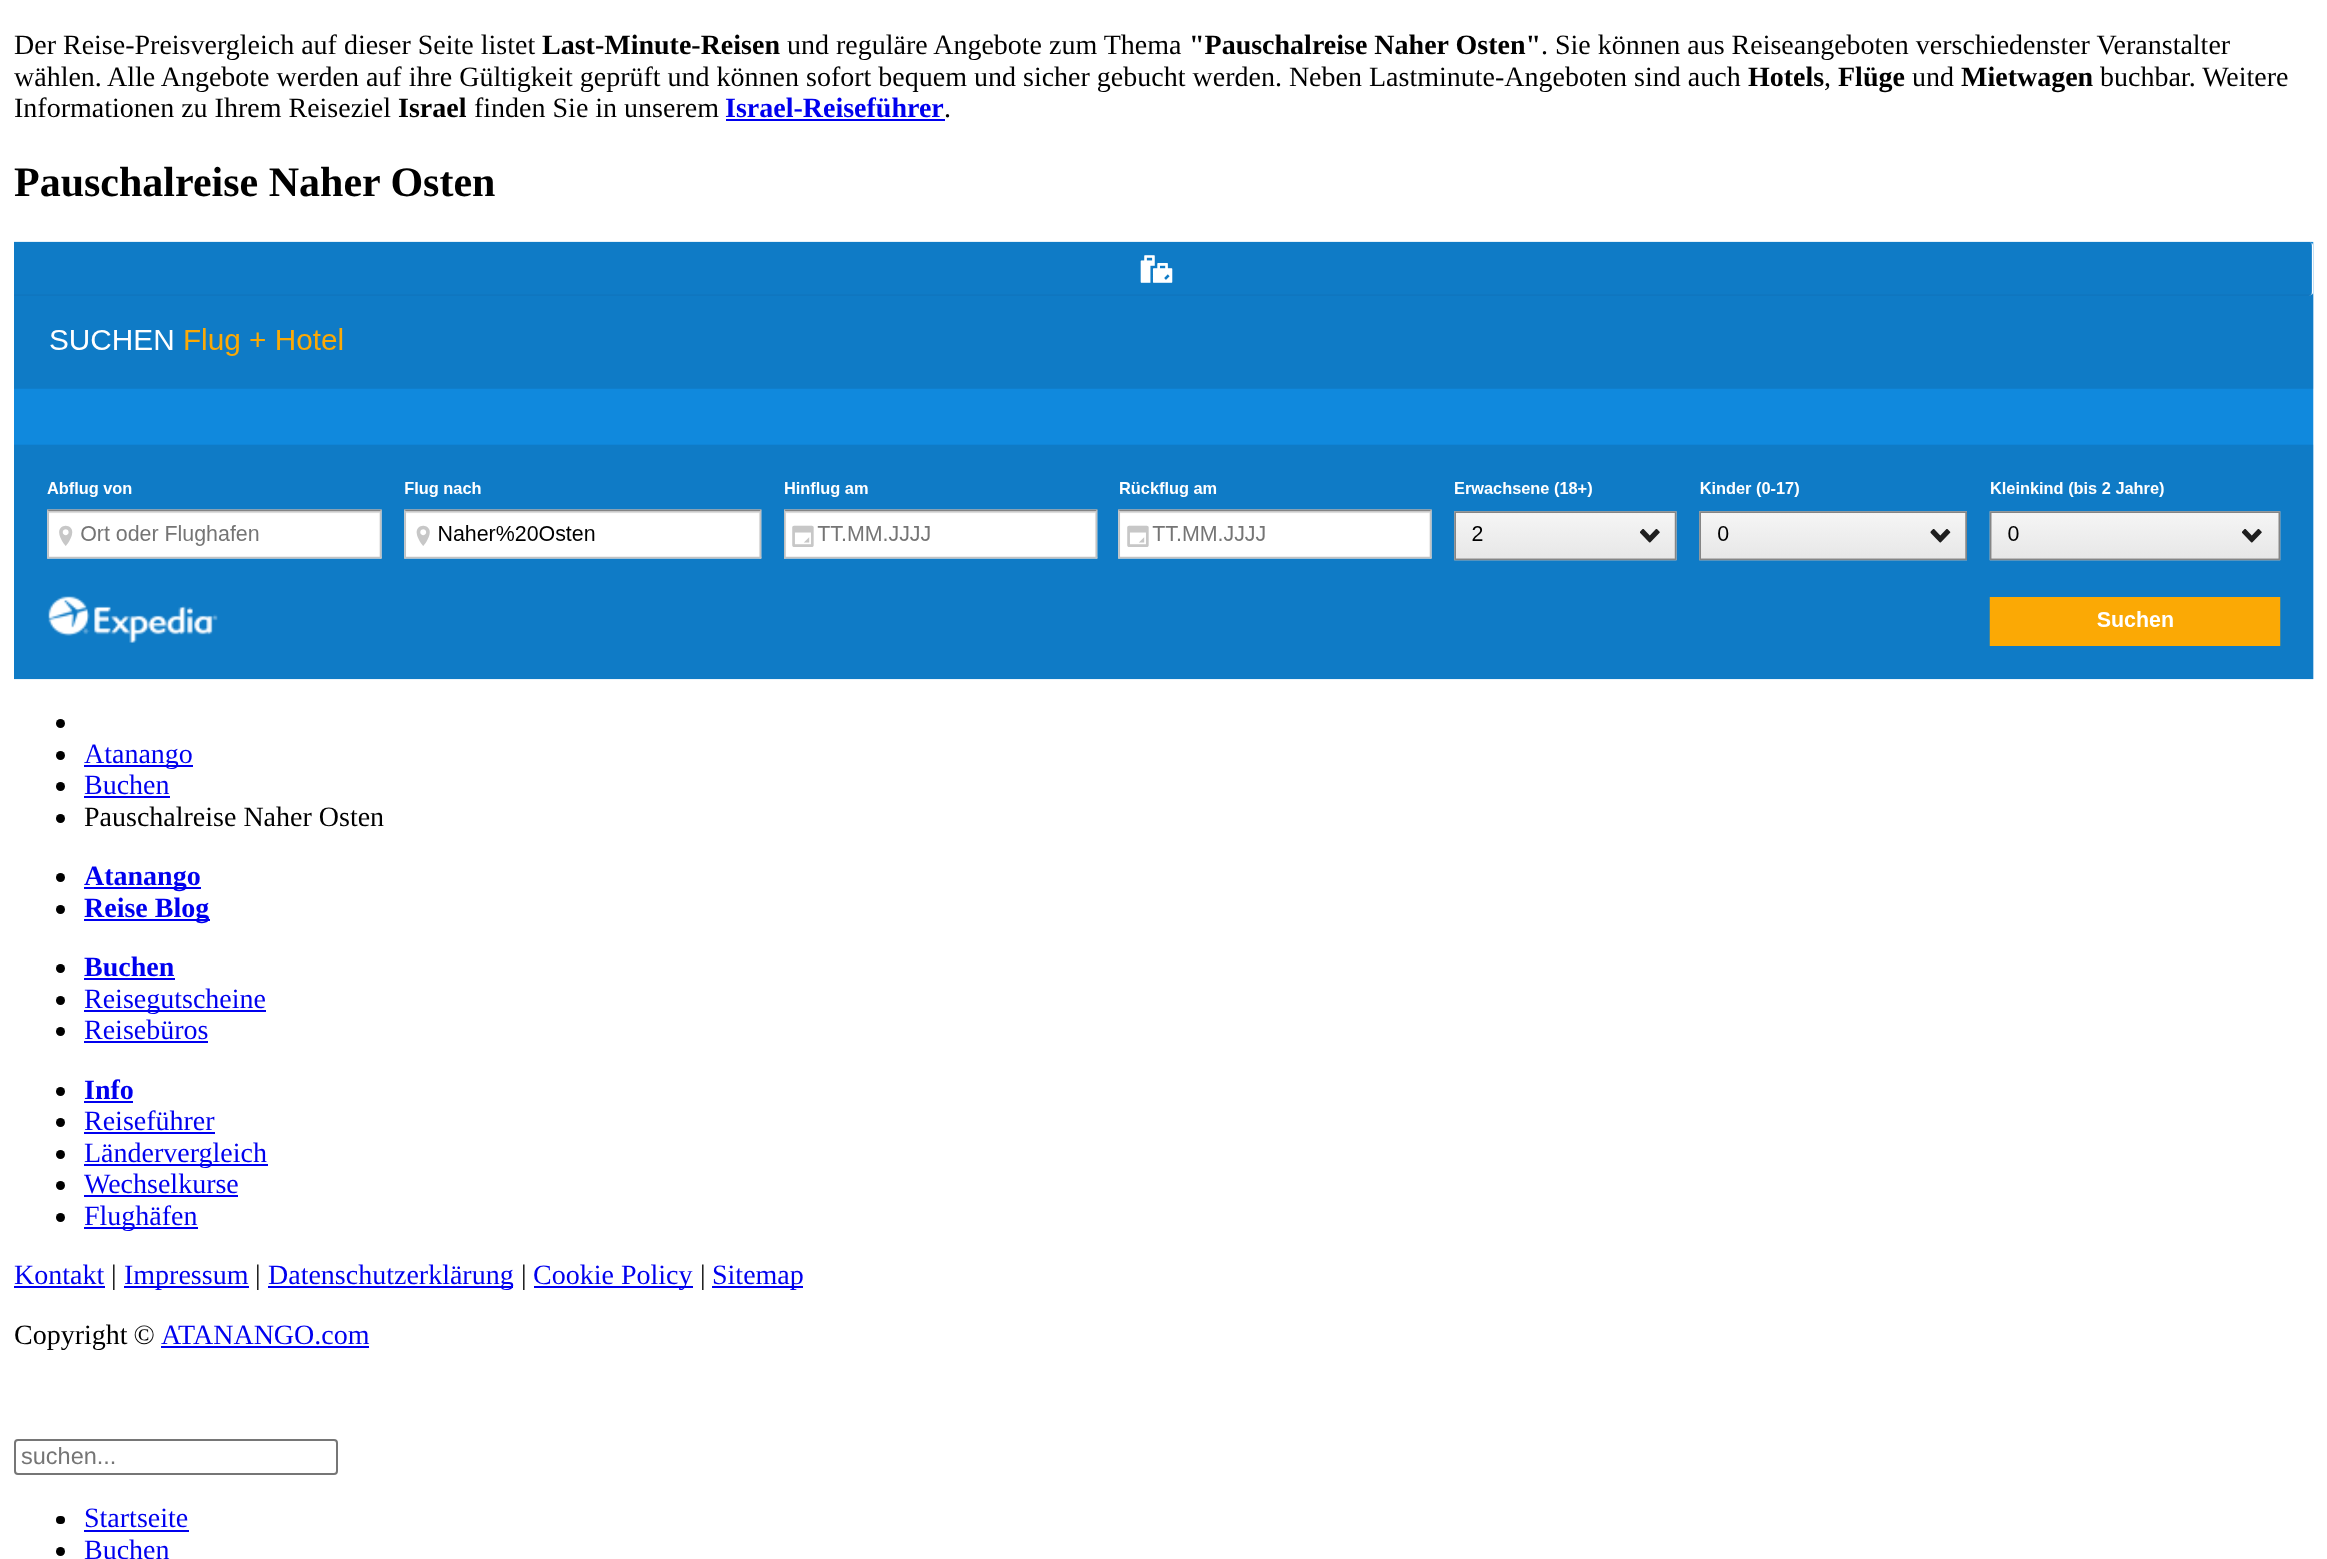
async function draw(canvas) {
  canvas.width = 2327
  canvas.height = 1559
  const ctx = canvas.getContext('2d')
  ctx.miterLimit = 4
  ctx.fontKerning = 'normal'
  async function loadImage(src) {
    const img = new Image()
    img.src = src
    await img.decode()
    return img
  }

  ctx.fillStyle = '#fff'
  ctx.fillRect(0, 0, 2327, 1559)
  ctx.font = '28px Liberation Serif'
  ctx.fillStyle = '#000'
  ctx.fillText('Der Reise-Preisvergleich auf dieser Seite listet', 14, 54)
  ctx.font = 'bold 28px Liberation Serif'
  ctx.fillText('Last-Minute-Reisen', 542, 54)
  ctx.font = '28px Liberation Serif'
  ctx.fillText('und reguläre Angebote zum Thema', 787, 54)
  ctx.font = 'bold 28px Liberation Serif'
  ctx.fillText('"Pauschalreise Naher Osten"', 1189, 54)
  ctx.font = '28px Liberation Serif'
  ctx.fillText('. Sie können aus Reiseangeboten verschiedenster Veranstalter', 1541, 54)
  ctx.fillText('wählen.', 14, 86)
  ctx.fillText('Alle Angebote werden auf ihre Gültigkeit geprüft und können sofort bequem und sicher gebucht werden. Neben Lastminute-Angeboten sind auch', 107, 86)
  ctx.font = 'bold 28px Liberation Serif'
  ctx.fillText('Hotels', 1748, 86)
  ctx.font = '28px Liberation Serif'
  ctx.fillText(',', 1824, 86)
  ctx.font = 'bold 28px Liberation Serif'
  ctx.fillText('Flüge', 1838, 86)
  ctx.font = '28px Liberation Serif'
  ctx.fillText('und', 1912, 86)
  ctx.font = 'bold 28px Liberation Serif'
  ctx.fillText('Mietwagen', 1961, 86)
  ctx.font = '28px Liberation Serif'
  ctx.fillText('buchbar. Weitere', 2100, 86)
  ctx.fillText('Informationen zu Ihrem Reiseziel', 14, 117)
  ctx.font = 'bold 28px Liberation Serif'
  ctx.fillText('Israel', 398, 117)
  ctx.font = '28px Liberation Serif'
  ctx.fillText('finden Sie in unserem', 474, 117)
  ctx.font = 'bold 28px Liberation Serif'
  ctx.fillStyle = '#00e'
  ctx.fillText('Israel-Reiseführer', 725, 117)
  ctx.fillRect(726, 119, 219, 2)
  ctx.font = '28px Liberation Serif'
  ctx.fillStyle = '#000'
  ctx.fillText('.', 944, 117)
  ctx.font = 'bold 42px Liberation Serif'
  ctx.fillText('Pauschalreise Naher Osten', 14, 196)
  ctx.drawImage(await loadImage('image0.png'), 14, 241, 2300, 439)
  ctx.beginPath()
  ctx.arc(60.5, 723.5, 4.5, 0, 2 * Math.PI)
  ctx.fill()
  ctx.beginPath()
  ctx.arc(60.5, 755.5, 4.5, 0, 2 * Math.PI)
  ctx.fill()
  ctx.fillStyle = '#00e'
  ctx.fillRect(84, 765, 109, 2)
  ctx.font = '28px Liberation Serif'
  ctx.fillText('Atanango', 84, 763)
  ctx.fillStyle = '#000'
  ctx.beginPath()
  ctx.arc(60.5, 786.5, 4.5, 0, 2 * Math.PI)
  ctx.fill()
  ctx.fillStyle = '#00e'
  ctx.fillText('Buchen', 84, 794)
  ctx.fillRect(84, 796, 86, 2)
  ctx.fillStyle = '#000'
  ctx.beginPath()
  ctx.arc(60.5, 818.5, 4.5, 0, 2 * Math.PI)
  ctx.fill()
  ctx.fillText('Pauschalreise Naher Osten', 84, 826)
  ctx.beginPath()
  ctx.arc(60.5, 877.5, 4.5, 0, 2 * Math.PI)
  ctx.fill()
  ctx.fillStyle = '#00e'
  ctx.fillRect(84, 887, 117, 2)
  ctx.font = 'bold 28px Liberation Serif'
  ctx.fillText('Atanango', 84, 885)
  ctx.fillStyle = '#000'
  ctx.beginPath()
  ctx.arc(60.5, 909.5, 4.5, 0, 2 * Math.PI)
  ctx.fill()
  ctx.fillStyle = '#00e'
  ctx.fillRect(84, 919, 126, 2)
  ctx.fillText('Reise Blog', 84, 917)
  ctx.fillStyle = '#000'
  ctx.beginPath()
  ctx.arc(60.5, 968.5, 4.5, 0, 2 * Math.PI)
  ctx.fill()
  ctx.fillStyle = '#00e'
  ctx.fillText('Buchen', 84, 976)
  ctx.fillRect(84, 978, 91, 2)
  ctx.fillStyle = '#000'
  ctx.beginPath()
  ctx.arc(60.5, 1000.5, 4.5, 0, 2 * Math.PI)
  ctx.fill()
  ctx.fillStyle = '#00e'
  ctx.fillRect(84, 1010, 182, 2)
  ctx.font = '28px Liberation Serif'
  ctx.fillText('Reisegutscheine', 84, 1008)
  ctx.fillStyle = '#000'
  ctx.beginPath()
  ctx.arc(60.5, 1031.5, 4.5, 0, 2 * Math.PI)
  ctx.fill()
  ctx.fillStyle = '#00e'
  ctx.fillText('Reisebüros', 84, 1039)
  ctx.fillRect(84, 1041, 124, 2)
  ctx.fillStyle = '#000'
  ctx.beginPath()
  ctx.arc(60.5, 1091.5, 4.5, 0, 2 * Math.PI)
  ctx.fill()
  ctx.font = 'bold 28px Liberation Serif'
  ctx.fillStyle = '#00e'
  ctx.fillText('Info', 84, 1099)
  ctx.fillRect(84, 1101, 49, 2)
  ctx.fillStyle = '#000'
  ctx.beginPath()
  ctx.arc(60.5, 1122.5, 4.5, 0, 2 * Math.PI)
  ctx.fill()
  ctx.font = '28px Liberation Serif'
  ctx.fillStyle = '#00e'
  ctx.fillText('Reiseführer', 84, 1130)
  ctx.fillRect(84, 1132, 131, 2)
  ctx.fillStyle = '#000'
  ctx.beginPath()
  ctx.arc(60.5, 1154.5, 4.5, 0, 2 * Math.PI)
  ctx.fill()
  ctx.fillStyle = '#00e'
  ctx.fillRect(84, 1164, 184, 2)
  ctx.fillText('Ländervergleich', 84, 1162)
  ctx.fillStyle = '#000'
  ctx.beginPath()
  ctx.arc(60.5, 1185.5, 4.5, 0, 2 * Math.PI)
  ctx.fill()
  ctx.fillStyle = '#00e'
  ctx.fillText('Wechselkurse', 84, 1193)
  ctx.fillRect(84, 1195, 154, 2)
  ctx.fillStyle = '#000'
  ctx.beginPath()
  ctx.arc(60.5, 1217.5, 4.5, 0, 2 * Math.PI)
  ctx.fill()
  ctx.fillStyle = '#00e'
  ctx.fillRect(84, 1227, 114, 2)
  ctx.fillText('Flughäfen', 84, 1225)
  ctx.fillText('Kontakt', 14, 1284)
  ctx.fillRect(14, 1286, 91, 2)
  ctx.fillStyle = '#000'
  ctx.fillText('|', 111, 1284)
  ctx.fillStyle = '#00e'
  ctx.fillRect(124, 1286, 125, 2)
  ctx.fillText('Impressum', 124, 1284)
  ctx.fillStyle = '#000'
  ctx.fillText('|', 255, 1284)
  ctx.fillStyle = '#00e'
  ctx.fillRect(268, 1286, 245, 2)
  ctx.fillText('Datenschutzerklärung', 268, 1284)
  ctx.fillStyle = '#000'
  ctx.fillText('|', 521, 1284)
  ctx.fillStyle = '#00e'
  ctx.fillRect(534, 1286, 159, 2)
  ctx.fillText('Cookie Policy', 533, 1284)
  ctx.fillStyle = '#000'
  ctx.fillText('|', 700, 1284)
  ctx.fillStyle = '#00e'
  ctx.fillRect(712, 1286, 91, 2)
  ctx.fillText('Sitemap', 712, 1284)
  ctx.wordSpacing = '-1px'
  ctx.fillStyle = '#000'
  ctx.fillText('Copyright ©', 14, 1344)
  ctx.wordSpacing = '0px'
  ctx.fillStyle = '#00e'
  ctx.fillText('ATANANGO.com', 161, 1344)
  ctx.fillRect(161, 1346, 208, 2)
  ctx.beginPath()
  ctx.roundRect(15, 1440, 322, 34, 3)
  ctx.strokeStyle = '#767676'
  ctx.lineWidth = 2
  ctx.stroke()
  ctx.font = '23.5px Liberation Sans'
  ctx.fillStyle = '#757575'
  ctx.fillText('suchen...', 21, 1464)
  ctx.fillStyle = '#000'
  ctx.beginPath()
  ctx.roundRect(56, 1516, 9, 8, 4)
  ctx.fill()
  ctx.font = '28px Liberation Serif'
  ctx.fillStyle = '#00e'
  ctx.fillText('Startseite', 84, 1527)
  ctx.fillRect(84, 1530, 105, 2)
  ctx.fillStyle = '#000'
  ctx.beginPath()
  ctx.arc(60.5, 1551.5, 4.5, 0, 2 * Math.PI)
  ctx.fill()
  ctx.fillStyle = '#00e'
  ctx.fillText('Buchen', 84, 1559)
}

draw(document.querySelector('canvas'))
